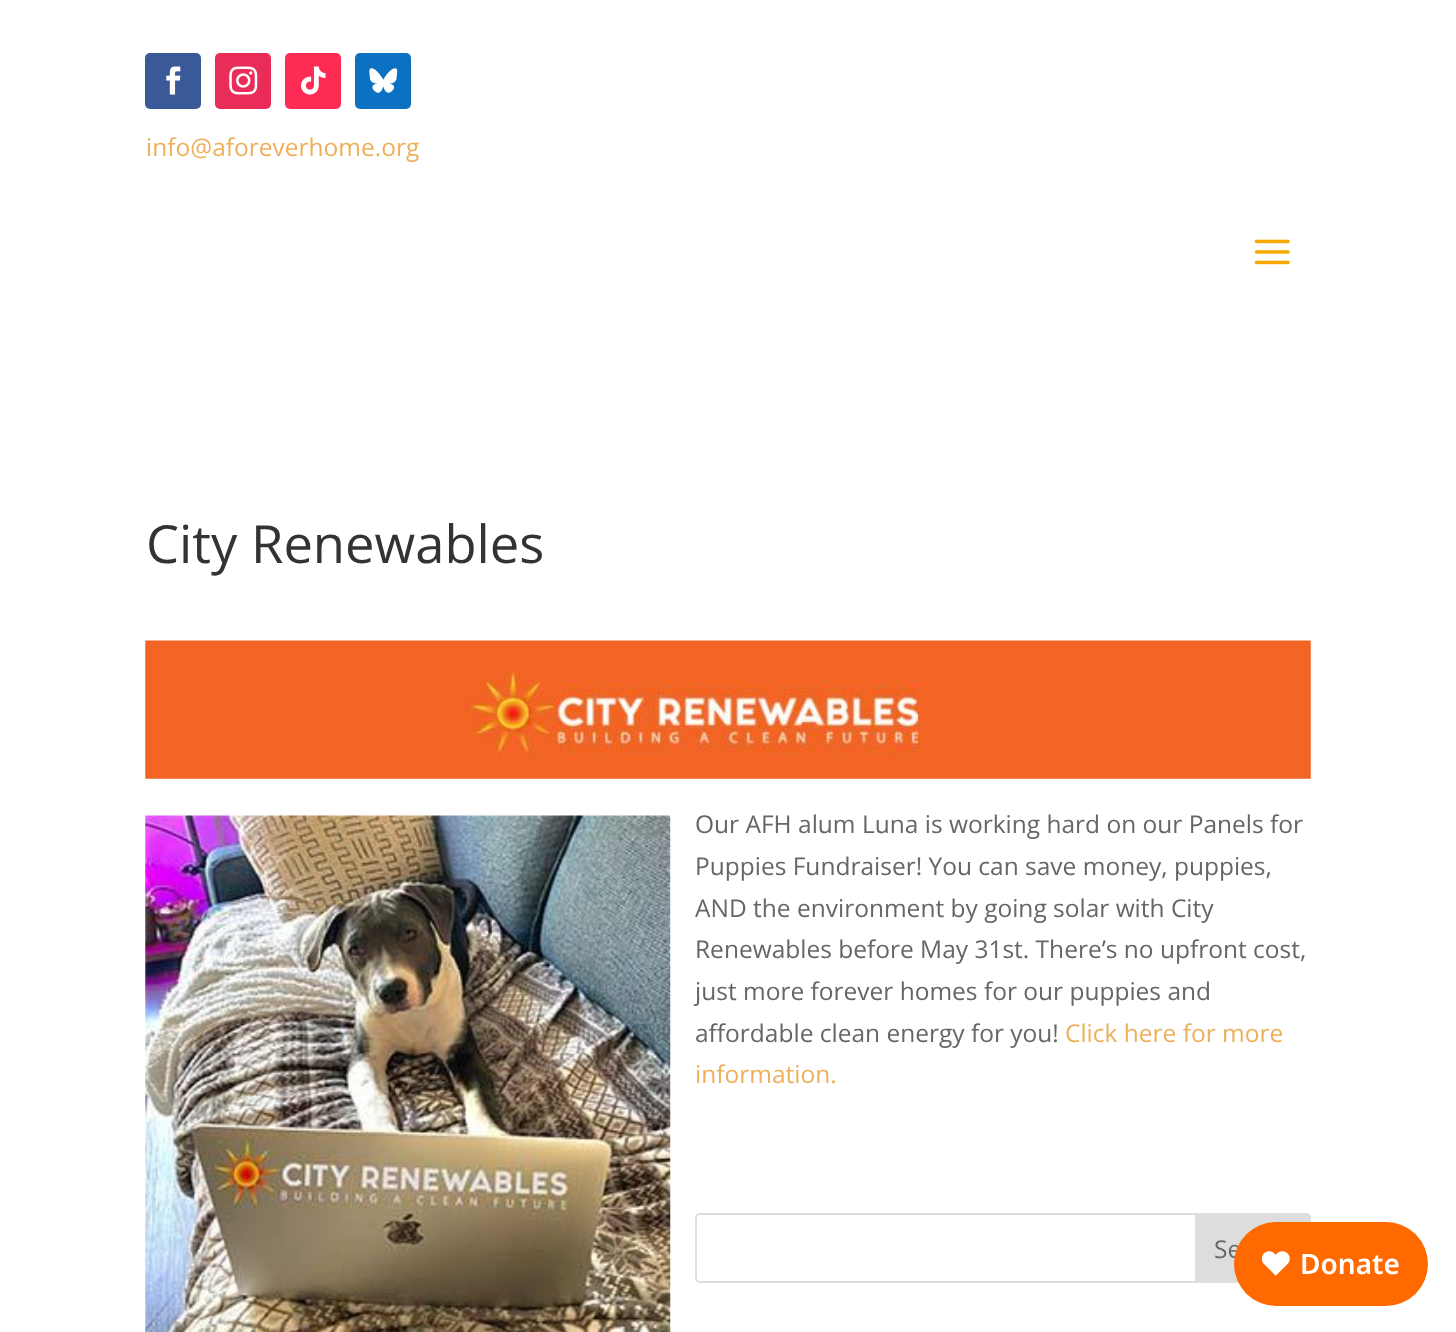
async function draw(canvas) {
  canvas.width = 1456
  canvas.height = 1332
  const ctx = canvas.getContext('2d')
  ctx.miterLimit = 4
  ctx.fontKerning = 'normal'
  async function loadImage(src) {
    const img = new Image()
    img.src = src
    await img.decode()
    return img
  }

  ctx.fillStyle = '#fff'
  ctx.fillRect(0, 0, 1456, 1332)
  ctx.fillStyle = '#3b5998'
  ctx.beginPath()
  ctx.roundRect(145, 53, 56, 56, 5)
  ctx.fill()
  ctx.drawImage(await loadImage('image0.png'), 166, 66, 15, 29)
  ctx.fillStyle = '#ea2c59'
  ctx.beginPath()
  ctx.roundRect(215, 53, 56, 56, 5)
  ctx.fill()
  ctx.drawImage(await loadImage('image1.png'), 229, 66, 29, 29)
  ctx.fillStyle = '#fe2c55'
  ctx.beginPath()
  ctx.roundRect(285, 53, 56, 56, 5)
  ctx.fill()
  ctx.drawImage(await loadImage('image2.png'), 301, 66, 25, 29)
  ctx.fillStyle = '#0c71c3'
  ctx.beginPath()
  ctx.roundRect(355, 53, 56, 56, 5)
  ctx.fill()
  ctx.drawImage(await loadImage('image3.png'), 369, 68, 29, 25)
  ctx.font = '24.5px Open Sans'
  ctx.fillStyle = '#edb059'
  ctx.fillText('info@aforeverhome.org', 146, 156)
  ctx.drawImage(await loadImage('image4.png'), 1254, 239, 36, 26)
  ctx.font = '52.5px Open Sans'
  ctx.fillStyle = '#333'
  ctx.fillText('City Renewables', 146, 563)
  ctx.drawImage(await loadImage('image5.png'), 145, 640, 1166, 139)
  ctx.drawImage(await loadImage('image6.png'), 145, 815, 526, 517)
  ctx.font = '24.5px Open Sans'
  ctx.fillStyle = '#666'
  ctx.fillText('Our AFH alum Luna is working hard on our Panels for', 695, 833)
  ctx.fillText('Puppies Fundraiser! You can save money, puppies,', 695, 875)
  ctx.fillText('AND the environment by going solar with City', 695, 917)
  ctx.fillText('Renewables before May 31st. There’s no upfront cost,', 695, 958)
  ctx.fillText('just more forever homes for our puppies and', 695, 1000)
  ctx.fillText('affordable clean energy for you!', 695, 1042)
  ctx.fillStyle = '#edb059'
  ctx.fillText('Click here for more', 1065, 1042)
  ctx.fillText('information.', 695, 1083)
  ctx.beginPath()
  ctx.roundRect(696, 1214, 614, 68, 4)
  ctx.strokeStyle = '#ddd'
  ctx.lineWidth = 2
  ctx.stroke()
  ctx.fillStyle = '#ddd'
  ctx.beginPath()
  ctx.roundRect(1196, 1214, 114, 68, [0, 4, 4, 0])
  ctx.fill()
  ctx.stroke()
  ctx.fillStyle = '#666'
  ctx.fillText('Se', 1214, 1258)
  ctx.fillStyle = '#ff6900'
  ctx.beginPath()
  ctx.roundRect(1234, 1222, 194, 84, 42)
  ctx.fill()
  ctx.drawImage(await loadImage('image7.png'), 1262, 1251, 28, 25)
  ctx.font = '600 28px Noto Sans'
  ctx.fillStyle = '#fff'
  ctx.fillText('Donate', 1300, 1274)
}

draw(document.querySelector('canvas'))
